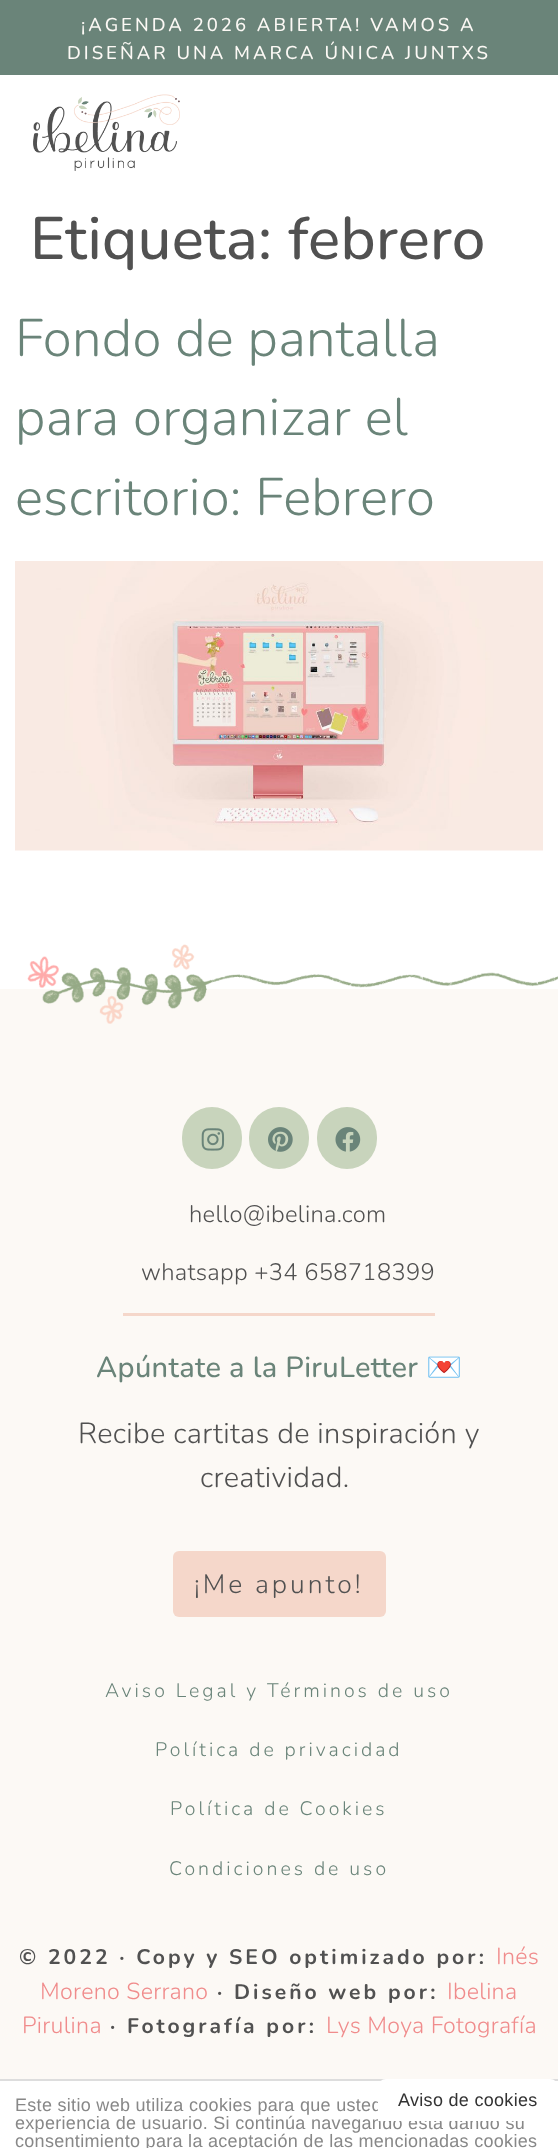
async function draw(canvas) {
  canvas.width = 558
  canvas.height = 2148
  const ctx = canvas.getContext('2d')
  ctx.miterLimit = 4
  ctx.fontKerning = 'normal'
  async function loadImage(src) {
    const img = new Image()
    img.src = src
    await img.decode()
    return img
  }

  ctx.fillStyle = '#fff'
  ctx.fillRect(0, 0, 558, 2148)
  ctx.fillStyle = '#6a8479'
  ctx.fillRect(0, 0, 558, 75)
  ctx.letterSpacing = '3px'
  ctx.font = '500 18.5px Nunito'
  ctx.fillStyle = '#fcf9f5'
  ctx.fillText('¡AGENDA 2026 ABIERTA! VAMOS A', 81, 31)
  ctx.fillText('DISEÑAR UNA MARCA ÚNICA JUNTXS', 67, 59)
  ctx.drawImage(await loadImage('image0.png'), 33, 94, 147, 77)
  ctx.letterSpacing = '0.3px'
  ctx.font = '500 60px Nunito'
  ctx.fillStyle = '#515151'
  ctx.fillText('Etiqueta: febrero', 30, 259)
  ctx.font = '300 52.75px Nunito'
  ctx.fillStyle = '#6a8479'
  ctx.fillText('Fondo de pantalla', 15, 356)
  ctx.fillText('para organizar el', 15, 435)
  ctx.fillText('escritorio: Febrero', 15, 515)
  ctx.drawImage(await loadImage('image1.png'), 15, 561, 528, 290)
  ctx.fillStyle = '#fcf9f5'
  ctx.fillRect(0, 989, 558, 1090)
  ctx.drawImage(await loadImage('image2.png'), 27, 944, 531, 80)
  ctx.fillStyle = '#c8d4bc'
  ctx.beginPath()
  ctx.roundRect(182, 1107, 60, 62, 30)
  ctx.fill()
  ctx.drawImage(await loadImage('image3.png'), 201, 1128, 24, 23)
  ctx.beginPath()
  ctx.roundRect(249, 1107, 60, 62, 30)
  ctx.fill()
  ctx.drawImage(await loadImage('image4.png'), 268, 1127, 25, 25)
  ctx.beginPath()
  ctx.roundRect(317, 1107, 60, 62, 30)
  ctx.fill()
  ctx.drawImage(await loadImage('image5.png'), 335, 1127, 26, 25)
  ctx.fillStyle = '#f5d7ca'
  ctx.fillRect(123, 1313, 312, 3)
  ctx.font = '300 23.75px Nunito'
  ctx.fillStyle = '#515151'
  ctx.fillText('hello@ibelina.com', 189, 1222)
  ctx.fillText('whatsapp +34 658718399', 141, 1280)
  ctx.font = '500 29px Nunito'
  ctx.fillStyle = '#6a8479'
  ctx.fillText('Apúntate a la PiruLetter', 96, 1377)
  ctx.font = '29px Noto Color Emoji'
  ctx.fillText('💌', 426, 1377)
  ctx.font = '300 29px Nunito'
  ctx.fillStyle = '#515151'
  ctx.fillText('Recibe cartitas de inspiración y', 78, 1443)
  ctx.fillText('creatividad.', 200, 1487)
  ctx.fillStyle = '#f5d7ca'
  ctx.beginPath()
  ctx.roundRect(173, 1551, 213, 66, 6)
  ctx.fill()
  ctx.letterSpacing = '3px'
  ctx.font = '300 26.5px Nunito'
  ctx.fillStyle = '#515151'
  ctx.fillText('¡Me apunto!', 194, 1593)
  ctx.font = '300 19.5px Nunito'
  ctx.fillStyle = '#6a8479'
  ctx.fillText('Aviso Legal y Términos de uso', 105, 1697)
  ctx.fillText('Política de privacidad', 155, 1756)
  ctx.fillText('Política de Cookies', 170, 1815)
  ctx.fillText('Condiciones de uso', 169, 1875)
  ctx.font = 'bold 21.1px Nunito'
  ctx.fillStyle = '#515151'
  ctx.fillText('© 2022 · Copy y SEO optimizado por:', 19, 1964)
  ctx.letterSpacing = '0.3px'
  ctx.font = '300 23.25px Nunito'
  ctx.fillStyle = '#f08c8c'
  ctx.fillText('Inés', 496, 1964)
  ctx.fillText('Moreno Serrano', 40, 1999)
  ctx.letterSpacing = '3px'
  ctx.font = 'bold 21.1px Nunito'
  ctx.fillStyle = '#515151'
  ctx.fillText('· Diseño web por:', 217, 1999)
  ctx.letterSpacing = '0.3px'
  ctx.font = '300 23.25px Nunito'
  ctx.fillStyle = '#f08c8c'
  ctx.fillText('Ibelina', 447, 1999)
  ctx.fillText('Pirulina', 22, 2033)
  ctx.letterSpacing = '3px'
  ctx.font = 'bold 21.1px Nunito'
  ctx.fillStyle = '#515151'
  ctx.fillText('· Fotografía por:', 110, 2033)
  ctx.letterSpacing = '0.3px'
  ctx.font = '300 23.25px Nunito'
  ctx.fillStyle = '#f08c8c'
  ctx.fillText('Lys Moya Fotografía', 326, 2033)
  ctx.fillStyle = '#ddd'
  ctx.fillRect(0, 2079, 558, 2)
  ctx.font = '18px Liberation Sans'
  ctx.fillStyle = '#888'
  ctx.fillText('Este sitio web utiliza cookies para que usted', 15, 2111)
  ctx.fillText('experiencia de usuario. Si continúa navegando está dando su', 15, 2129)
  ctx.fillStyle = '#fff'
  ctx.beginPath()
  ctx.roundRect(378, 2079, 180, 42, [8, 8, 0, 0])
  ctx.fill()
  ctx.fillStyle = '#333'
  ctx.fillText('Aviso de cookies', 398, 2106)
  ctx.fillStyle = '#888'
  ctx.fillText('consentimiento para la aceptación de las mencionadas cookies', 15, 2147)
}

draw(document.querySelector('canvas'))
